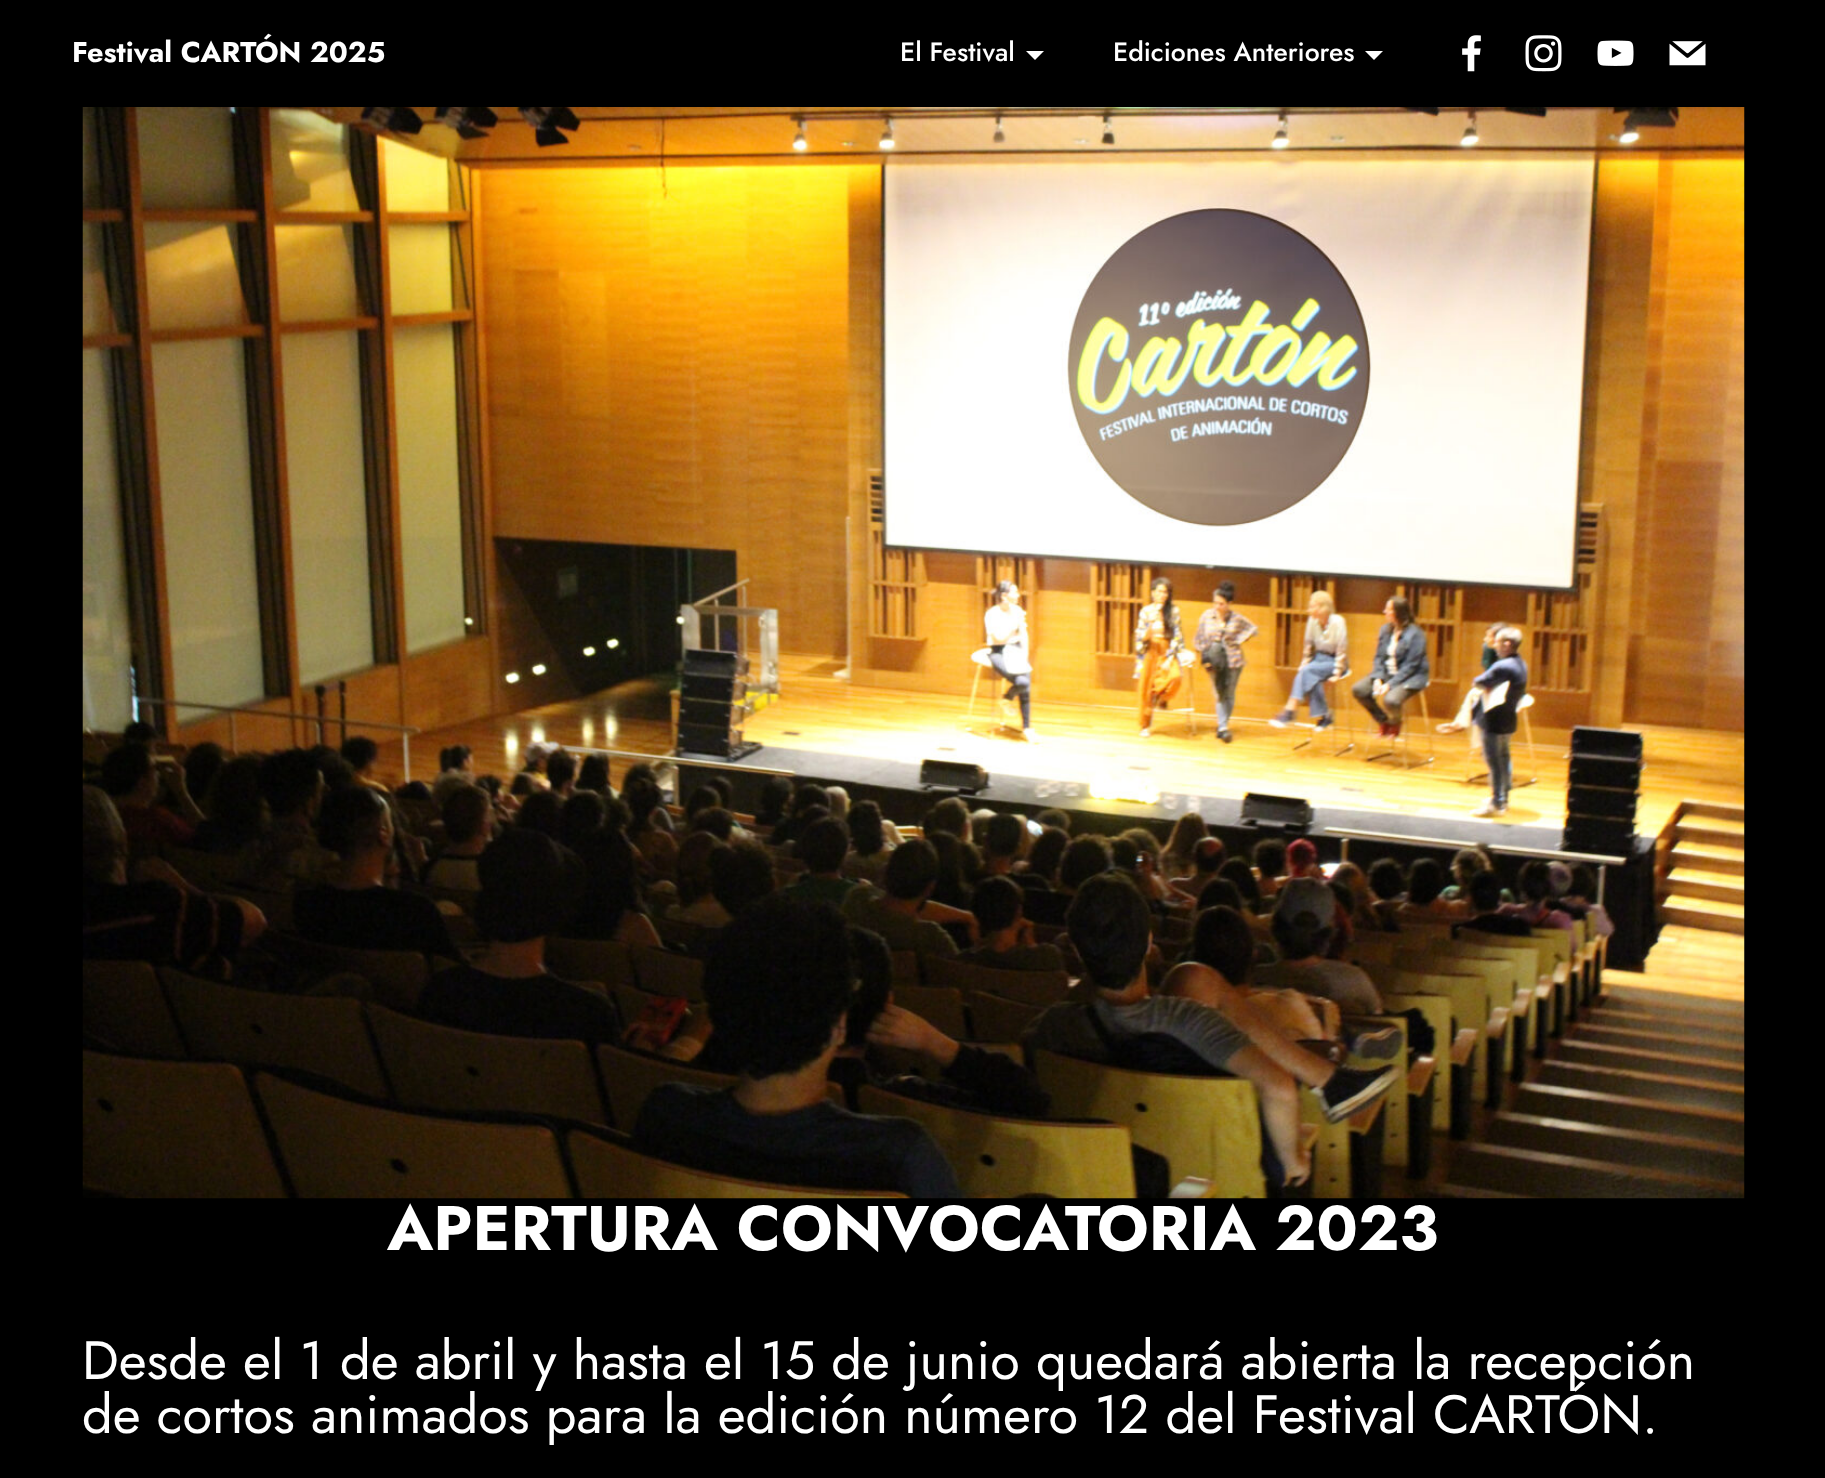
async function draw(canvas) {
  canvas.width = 1825
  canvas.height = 1478
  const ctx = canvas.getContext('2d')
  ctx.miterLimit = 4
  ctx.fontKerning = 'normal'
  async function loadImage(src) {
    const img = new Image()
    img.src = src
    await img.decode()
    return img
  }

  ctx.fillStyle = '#000'
  ctx.fillRect(0, 0, 1825, 1478)
  ctx.drawImage(await loadImage('image4.png'), 82, 107, 1663, 1092)
  ctx.fillStyle = '#0000001a'
  ctx.filter = 'blur(2px)'
  ctx.beginPath()
  ctx.rect(0, 2, 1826, 106)
  ctx.fill()
  ctx.filter = 'none'
  ctx.font = 'bold 28.75px Jost'
  ctx.fillStyle = '#fff'
  ctx.fillText('Festival CARTÓN 2025', 72, 62)
  ctx.font = '500 26.5px Jost'
  ctx.fillText('El Festival', 900, 61)
  ctx.beginPath()
  ctx.moveTo(1026, 51)
  ctx.lineTo(1044, 51)
  ctx.lineTo(1035, 60)
  ctx.closePath()
  ctx.fill()
  ctx.fillText('Ediciones Anteriores', 1113, 61)
  ctx.beginPath()
  ctx.moveTo(1365, 51)
  ctx.lineTo(1383, 51)
  ctx.lineTo(1374, 60)
  ctx.closePath()
  ctx.fill()
  ctx.drawImage(await loadImage('image0.png'), 1462, 35, 19, 37)
  ctx.drawImage(await loadImage('image1.png'), 1525, 35, 37, 37)
  ctx.drawImage(await loadImage('image2.png'), 1597, 40, 37, 26)
  ctx.drawImage(await loadImage('image3.png'), 1669, 41, 37, 25)
  ctx.font = 'bold 63px Jost'
  ctx.fillText('APERTURA CONVOCATORIA 2023', 387, 1250)
  ctx.font = '54px Jost'
  ctx.fillText('Desde el 1 de abril y hasta el 15 de junio quedará abierta la recepción', 82, 1379)
  ctx.fillText('de cortos animados para la edición número 12 del Festival CARTÓN.', 82, 1433)
}

draw(document.querySelector('canvas'))
